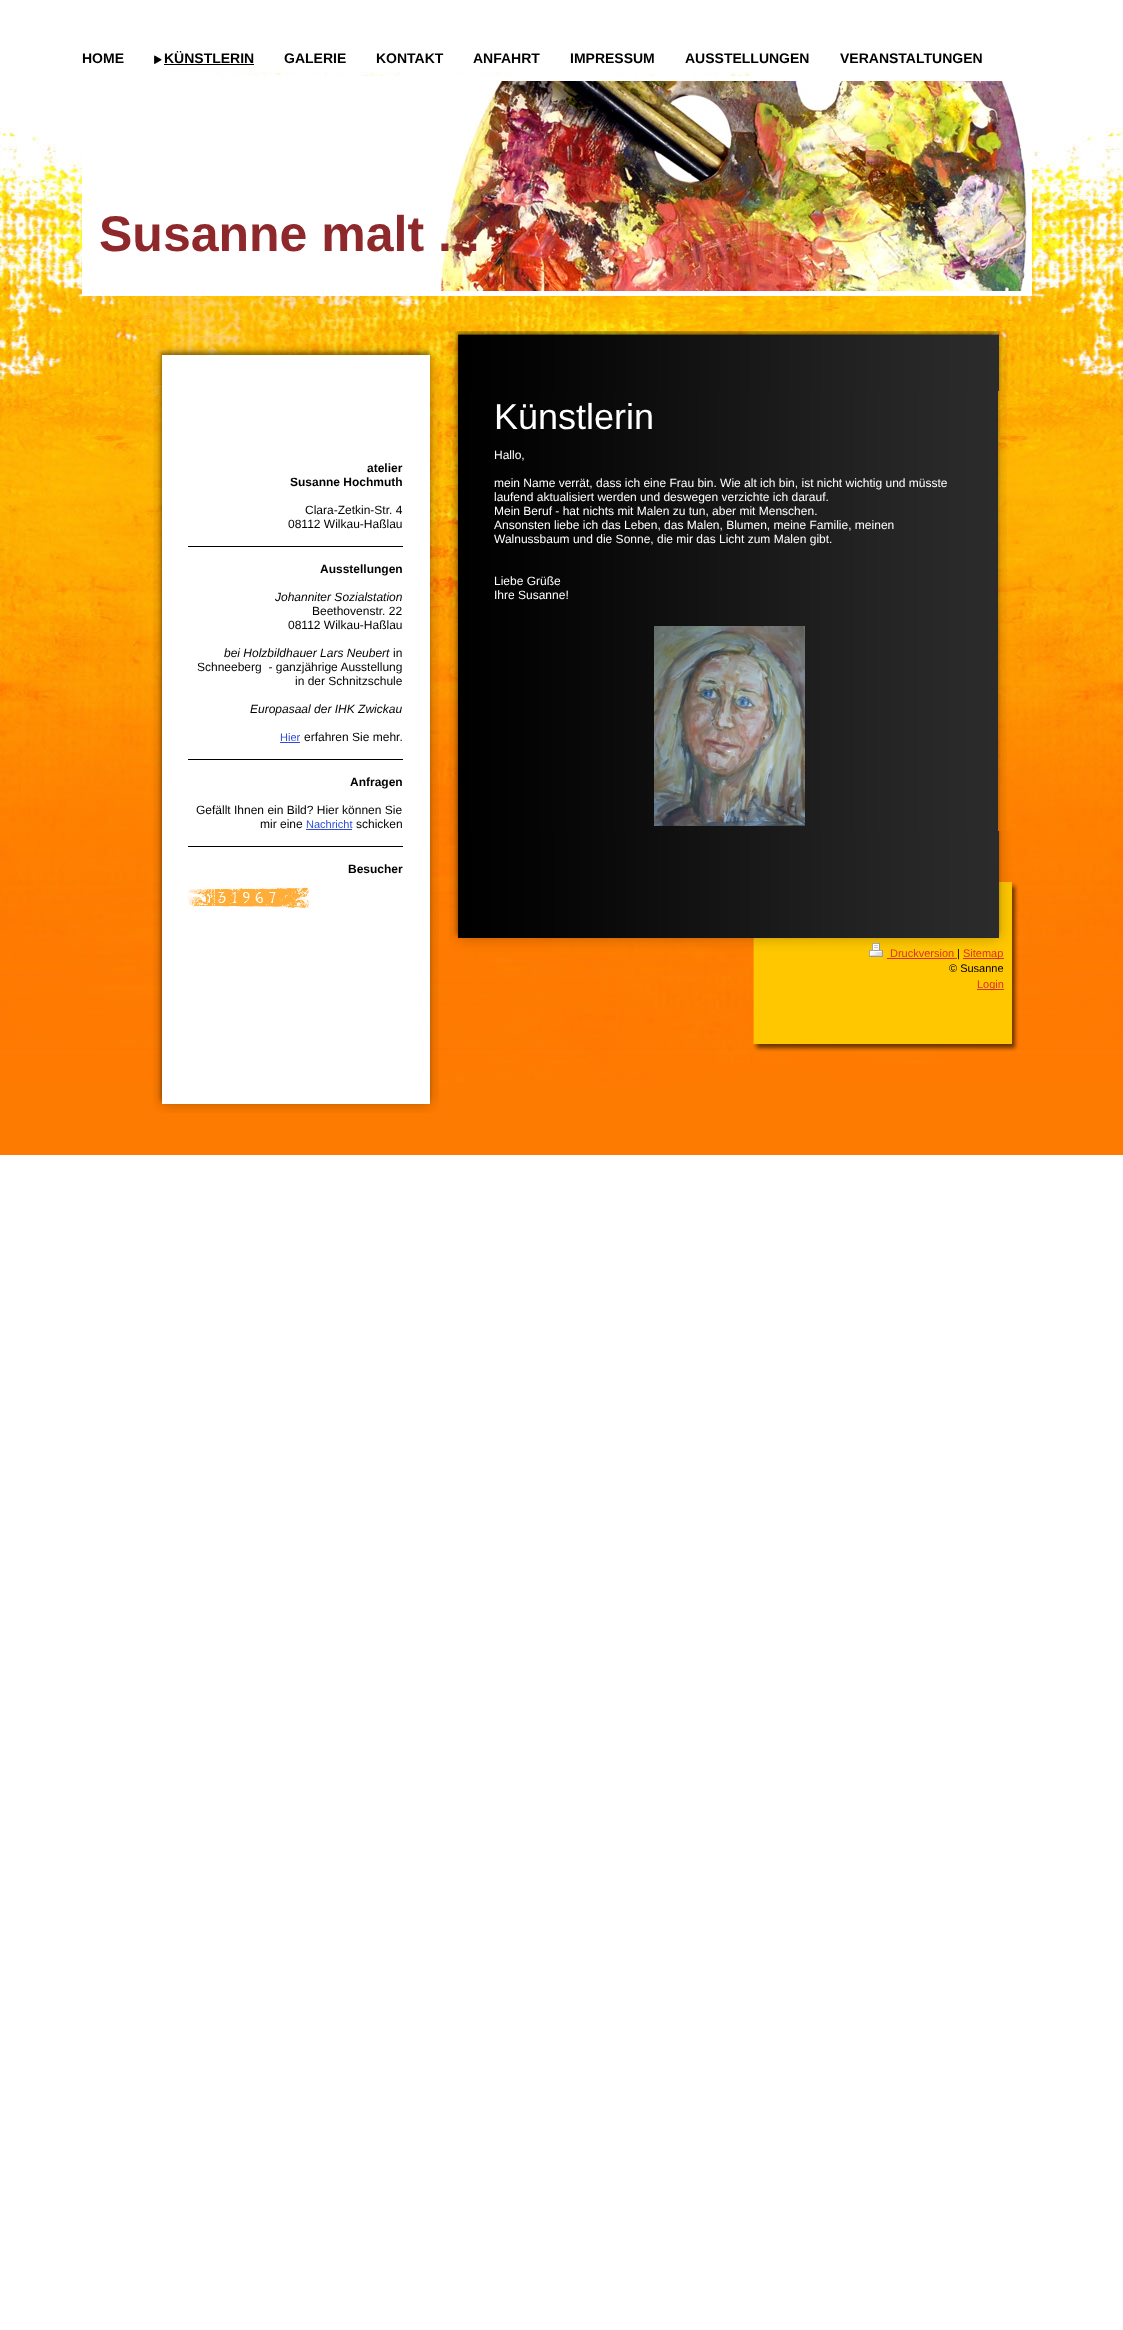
async function draw(canvas) {
  canvas.width = 1123
  canvas.height = 2330
  const ctx = canvas.getContext('2d')
  ctx.miterLimit = 4
  ctx.fontKerning = 'normal'
  async function loadImage(src) {
    const img = new Image()
    img.src = src
    await img.decode()
    return img
  }

  ctx.fillStyle = '#fff'
  ctx.fillRect(0, 0, 1123, 2330)
  ctx.drawImage(await loadImage('image0.png'), 0, 72, 1123, 1083)
  ctx.font = 'bold 14px Liberation Sans'
  ctx.fillStyle = '#000'
  ctx.fillText('HOME', 82, 63)
  ctx.drawImage(await loadImage('image1.png'), 154, 55, 8, 9)
  ctx.fillText('KÜNSTLERIN', 164, 63)
  ctx.fillRect(164, 64, 90, 1)
  ctx.fillText('GALERIE', 284, 63)
  ctx.fillText('KONTAKT', 376, 63)
  ctx.fillText('ANFAHRT', 473, 63)
  ctx.fillText('IMPRESSUM', 570, 63)
  ctx.fillText('AUSSTELLUNGEN', 685, 63)
  ctx.fillText('VERANSTALTUNGEN', 840, 63)
  ctx.fillStyle = '#fff'
  ctx.fillRect(82, 76, 950, 220)
  ctx.drawImage(await loadImage('image2.png'), 87, 81, 940, 210)
  ctx.font = 'bold 50px Liberation Sans'
  ctx.fillStyle = '#8e282a'
  ctx.fillText('Susanne malt ...', 99, 251)
  ctx.drawImage(await loadImage('image3.png'), 153, 917, 286, 196)
  ctx.drawImage(await loadImage('image4.png'), 153, 346, 286, 266)
  ctx.drawImage(await loadImage('image5.png'), 153, 612, 286, 305)
  ctx.font = 'bold 12px Liberation Sans'
  ctx.fillStyle = '#000'
  ctx.fillText('atelier', 367, 472)
  ctx.fillText('Susanne Hochmuth', 290, 486)
  ctx.font = '12px Liberation Sans'
  ctx.fillText('Clara-Zetkin-Str. 4', 305, 514)
  ctx.fillText('08112 Wilkau-Haßlau', 288, 528)
  ctx.fillRect(188, 546, 215, 1)
  ctx.font = 'bold 12px Liberation Sans'
  ctx.fillText('Ausstellungen', 320, 573)
  ctx.font = 'italic 12px Liberation Sans'
  ctx.fillText('Johanniter Sozialstation', 275, 601)
  ctx.font = '12px Liberation Sans'
  ctx.fillText('Beethovenstr. 22', 312, 615)
  ctx.fillText('08112 Wilkau-Haßlau', 288, 629)
  ctx.font = 'italic 12px Liberation Sans'
  ctx.fillText('bei Holzbildhauer Lars Neubert', 224, 657)
  ctx.font = '12px Liberation Sans'
  ctx.fillText('in', 393, 657)
  ctx.fillText('Schneeberg  - ganzjährige Ausstellung', 197, 671)
  ctx.fillText('in der Schnitzschule', 295, 685)
  ctx.font = 'italic 12px Liberation Sans'
  ctx.fillText('Europasaal der IHK Zwickau', 250, 713)
  ctx.font = '11px Liberation Sans'
  ctx.fillStyle = '#304cd7'
  ctx.fillText('Hier', 280, 741)
  ctx.fillRect(280, 742, 20, 1)
  ctx.font = '12px Liberation Sans'
  ctx.fillStyle = '#000'
  ctx.fillText('erfahren Sie mehr.', 304, 741)
  ctx.fillRect(188, 759, 215, 1)
  ctx.font = 'bold 12px Liberation Sans'
  ctx.fillText('Anfragen', 350, 786)
  ctx.font = '12px Liberation Sans'
  ctx.fillText('Gefällt Ihnen ein Bild? Hier können Sie', 196, 814)
  ctx.fillText('mir eine', 260, 828)
  ctx.font = '11px Liberation Sans'
  ctx.fillStyle = '#304cd7'
  ctx.fillText('Nachricht', 306, 828)
  ctx.fillRect(306, 829, 46, 1)
  ctx.font = '12px Liberation Sans'
  ctx.fillStyle = '#000'
  ctx.fillText('schicken', 356, 828)
  ctx.fillRect(188, 846, 215, 1)
  ctx.font = 'bold 12px Liberation Sans'
  ctx.fillText('Besucher', 348, 873)
  ctx.drawImage(await loadImage('image6.png'), 188, 887, 27, 21)
  ctx.drawImage(await loadImage('image7.png'), 215, 886, 14, 23)
  ctx.drawImage(await loadImage('image8.png'), 229, 886, 11, 21)
  ctx.drawImage(await loadImage('image9.png'), 240, 887, 12, 21)
  ctx.drawImage(await loadImage('image10.png'), 252, 886, 14, 22)
  ctx.drawImage(await loadImage('image11.png'), 266, 887, 13, 22)
  ctx.drawImage(await loadImage('image12.png'), 279, 886, 30, 22)
  ctx.drawImage(await loadImage('image13.png'), 449, 331, 559, 60)
  ctx.drawImage(await loadImage('image14.png'), 449, 391, 558, 440)
  ctx.font = '36px Liberation Sans'
  ctx.fillStyle = '#fff'
  ctx.fillText('Künstlerin', 494, 429)
  ctx.font = '12px Liberation Sans'
  ctx.fillText('Hallo,', 494, 459)
  ctx.fillText('mein Name verrät, dass ich eine Frau bin. Wie alt ich bin, ist nicht wichtig und müsste', 494, 487)
  ctx.fillText('laufend aktualisiert werden und deswegen verzichte ich darauf.', 494, 501)
  ctx.fillText('Mein Beruf - hat nichts mit Malen zu tun, aber mit Menschen.', 494, 515)
  ctx.fillText('Ansonsten liebe ich das Leben, das Malen, Blumen, meine Familie, meinen', 494, 529)
  ctx.fillText('Walnussbaum und die Sonne, die mir das Licht zum Malen gibt.', 494, 543)
  ctx.fillText('Liebe Grüße', 494, 585)
  ctx.fillText('Ihre Susanne!', 494, 599)
  ctx.drawImage(await loadImage('image15.png'), 654, 626, 151, 200)
  ctx.drawImage(await loadImage('image16.png'), 449, 831, 570, 221)
  ctx.drawImage(await loadImage('image17.png'), 869, 943, 14, 14)
  ctx.font = '11px Liberation Sans'
  ctx.fillStyle = '#db2f2c'
  ctx.fillText('Druckversion', 890, 957)
  ctx.fillRect(887, 958, 70, 1)
  ctx.fillStyle = '#000'
  ctx.fillText('|', 957, 957)
  ctx.fillStyle = '#db2f2c'
  ctx.fillRect(963, 958, 41, 1)
  ctx.fillText('Sitemap', 963, 957)
  ctx.fillStyle = '#000'
  ctx.fillText('© Susanne', 949, 972)
  ctx.fillStyle = '#db2f2c'
  ctx.fillRect(977, 989, 27, 1)
  ctx.fillText('Login', 977, 988)
}

draw(document.querySelector('canvas'))
